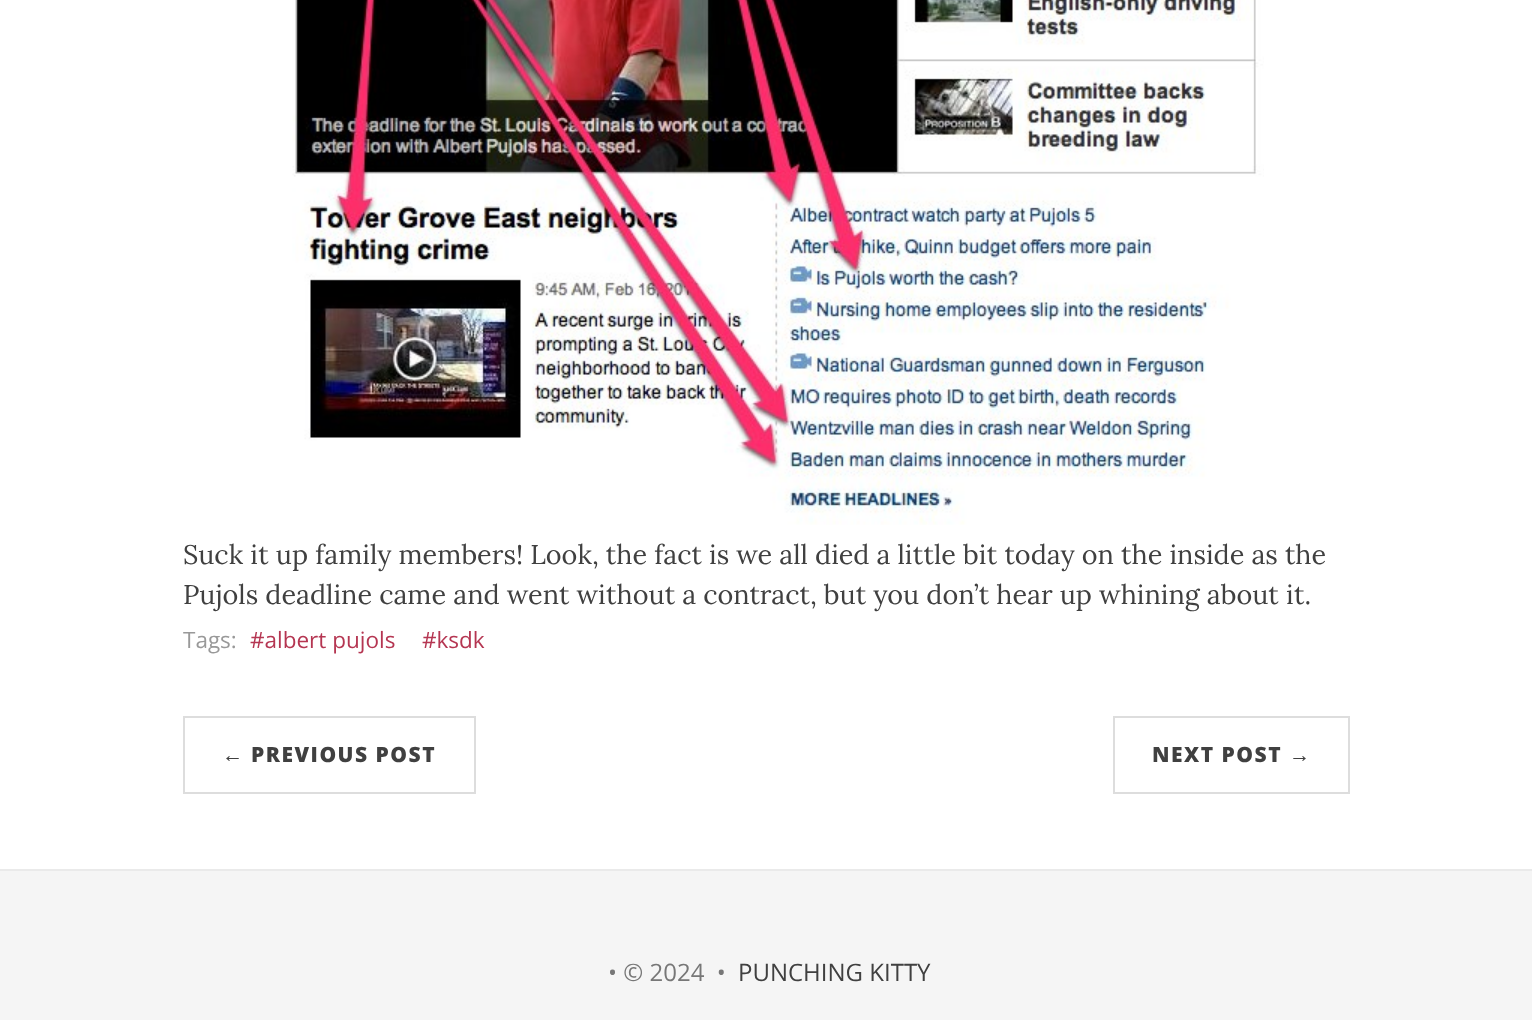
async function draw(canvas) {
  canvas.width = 1532
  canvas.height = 1020
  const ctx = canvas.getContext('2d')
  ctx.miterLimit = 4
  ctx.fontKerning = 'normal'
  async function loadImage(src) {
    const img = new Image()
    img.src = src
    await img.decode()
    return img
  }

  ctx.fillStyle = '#fff'
  ctx.fillRect(0, 0, 1532, 1020)
  ctx.drawImage(await loadImage('image0.png'), 292, 0, 972, 525)
  ctx.font = '27px Lora'
  ctx.fillStyle = '#404040'
  ctx.fillText('Suck it up family members! Look, the fact is we all died a little bit today on the inside as the', 183, 564)
  ctx.fillText('Pujols deadline came and went without a contract, but you don’t hear up whining about it.', 183, 604)
  ctx.font = '22.5px Open Sans'
  ctx.fillStyle = '#999'
  ctx.fillText('Tags:', 183, 648)
  ctx.fillStyle = '#b53652'
  ctx.fillText('#albert pujols', 250, 648)
  ctx.fillText('#ksdk', 422, 648)
  ctx.strokeStyle = '#ddd'
  ctx.lineWidth = 2
  ctx.strokeRect(184, 717, 291, 76)
  ctx.letterSpacing = '1.5px'
  ctx.font = 'bold 21px Liberation Sans'
  ctx.fillStyle = '#404040'
  ctx.fillText('←', 222, 762)
  ctx.font = '800 21px Open Sans'
  ctx.fillText('PREVIOUS POST', 251, 762)
  ctx.strokeRect(1114, 717, 235, 76)
  ctx.fillText('NEXT POST', 1152, 762)
  ctx.font = 'bold 21px Liberation Sans'
  ctx.fillText('→', 1289, 762)
  ctx.fillStyle = '#f5f5f5'
  ctx.fillRect(0, 871, 1532, 149)
  ctx.fillStyle = '#eaeaea'
  ctx.fillRect(0, 869, 1532, 2)
  ctx.letterSpacing = '0px'
  ctx.font = '24px Open Sans'
  ctx.fillStyle = '#777'
  ctx.fillText('• © 2024  •', 608, 981)
  ctx.fillStyle = '#404040'
  ctx.fillText('PUNCHING KITTY', 738, 981)
}

draw(document.querySelector('canvas'))
